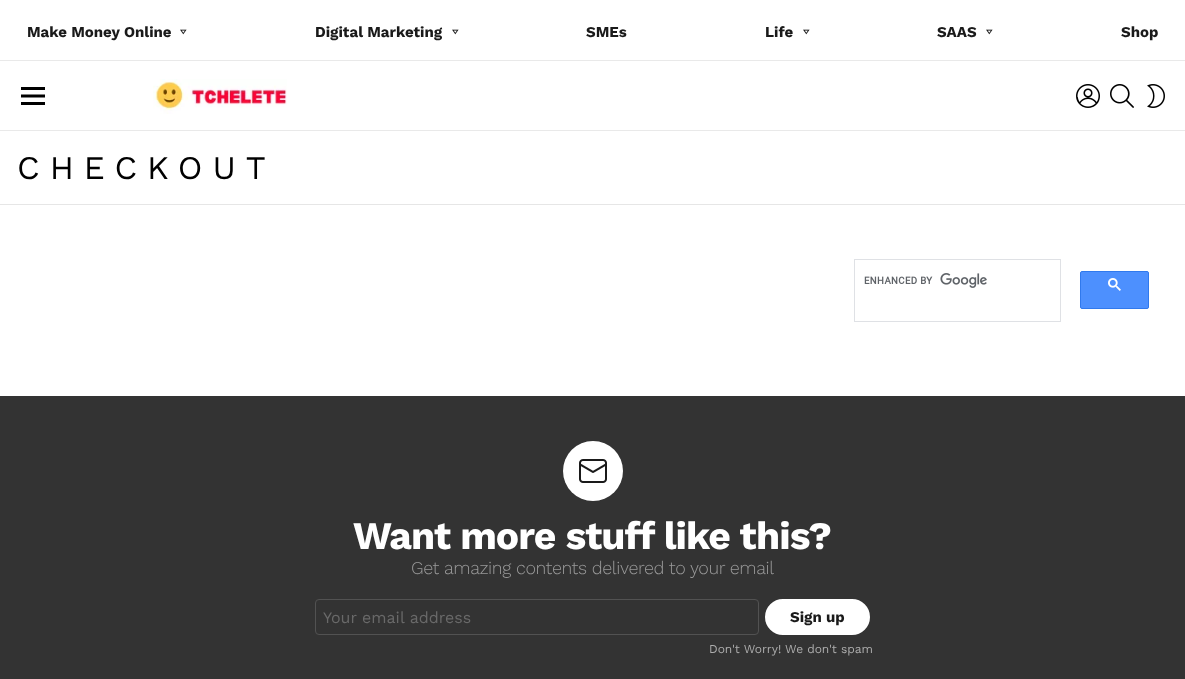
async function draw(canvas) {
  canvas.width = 1185
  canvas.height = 679
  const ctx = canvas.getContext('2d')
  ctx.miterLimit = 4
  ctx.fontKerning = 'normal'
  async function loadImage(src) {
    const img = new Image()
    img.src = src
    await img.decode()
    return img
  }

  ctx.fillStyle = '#fff'
  ctx.fillRect(0, 0, 1185, 679)
  ctx.font = 'bold 15px Work Sans'
  ctx.fillStyle = '#1a1a1a'
  ctx.fillText('Make Money Online', 27, 37)
  ctx.drawImage(await loadImage('image0.png'), 180, 29, 7, 6)
  ctx.fillText('Digital Marketing', 315, 37)
  ctx.drawImage(await loadImage('image0.png'), 452, 29, 7, 6)
  ctx.fillText('SMEs', 586, 37)
  ctx.fillText('Life', 765, 37)
  ctx.drawImage(await loadImage('image0.png'), 803, 29, 7, 6)
  ctx.fillText('SAAS', 937, 37)
  ctx.drawImage(await loadImage('image0.png'), 986, 29, 7, 6)
  ctx.fillText('Shop', 1121, 37)
  ctx.fillStyle = '#e9e9e9'
  ctx.fillRect(0, 60, 1185, 1)
  ctx.drawImage(await loadImage('image1.png'), 21, 87, 24, 18)
  ctx.drawImage(await loadImage('image2.png'), 153, 79, 134, 35)
  ctx.drawImage(await loadImage('image3.png'), 1076, 84, 24, 24)
  ctx.drawImage(await loadImage('image4.png'), 1110, 84, 24, 24)
  ctx.drawImage(await loadImage('image5.png'), 1147, 84, 18, 24)
  ctx.fillRect(0, 130, 1185, 1)
  ctx.letterSpacing = '10px'
  ctx.font = '33px Work Sans'
  ctx.fillStyle = '#000'
  ctx.fillText('CHECKOUT', 17, 179)
  ctx.fillStyle = '#e6e6e6'
  ctx.fillRect(0, 204, 1185, 1)
  ctx.strokeStyle = '#dfe1e5'
  ctx.strokeRect(854.5, 259.5, 206, 62)
  ctx.drawImage(await loadImage('image6.png'), 864, 273, 123, 15)
  ctx.fillStyle = '#4d90fe'
  ctx.beginPath()
  ctx.roundRect(1080.5, 271.5, 68, 37, 1.5)
  ctx.fill()
  ctx.strokeStyle = '#3079ed'
  ctx.stroke()
  ctx.drawImage(await loadImage('image7.png'), 1108, 278, 13, 13)
  ctx.fillStyle = '#333'
  ctx.fillRect(0, 396, 1185, 283)
  ctx.fillStyle = '#fff'
  ctx.beginPath()
  ctx.arc(593, 471, 30, 0, 2 * Math.PI)
  ctx.fill()
  ctx.drawImage(await loadImage('image8.png'), 579, 459, 28, 24)
  ctx.letterSpacing = '-1px'
  ctx.font = 'bold 39px Work Sans'
  ctx.fillText('Want more stuff like this?', 353, 549)
  ctx.letterSpacing = '-0.45px'
  ctx.font = '300 18px Work Sans'
  ctx.fillStyle = '#999'
  ctx.fillText('Get amazing contents delivered to your email', 411, 574)
  ctx.beginPath()
  ctx.roundRect(315.5, 599.5, 443, 35, 3.5)
  ctx.strokeStyle = '#525252'
  ctx.stroke()
  ctx.letterSpacing = '0px'
  ctx.font = '16px Work Sans'
  ctx.fillStyle = '#696969'
  ctx.fillText('Your email address', 323, 623)
  ctx.fillStyle = '#fff'
  ctx.beginPath()
  ctx.roundRect(766, 600, 103, 34, 17)
  ctx.fill()
  ctx.strokeStyle = '#fff'
  ctx.lineWidth = 2
  ctx.stroke()
  ctx.font = 'bold 15px Work Sans'
  ctx.fillStyle = '#1a1a1a'
  ctx.fillText('Sign up', 790, 622)
  ctx.font = '12px Work Sans'
  ctx.fillStyle = '#adadad'
  ctx.fillText('Don\'t Worry! We don\'t spam', 709, 653)
}

draw(document.querySelector('canvas'))
